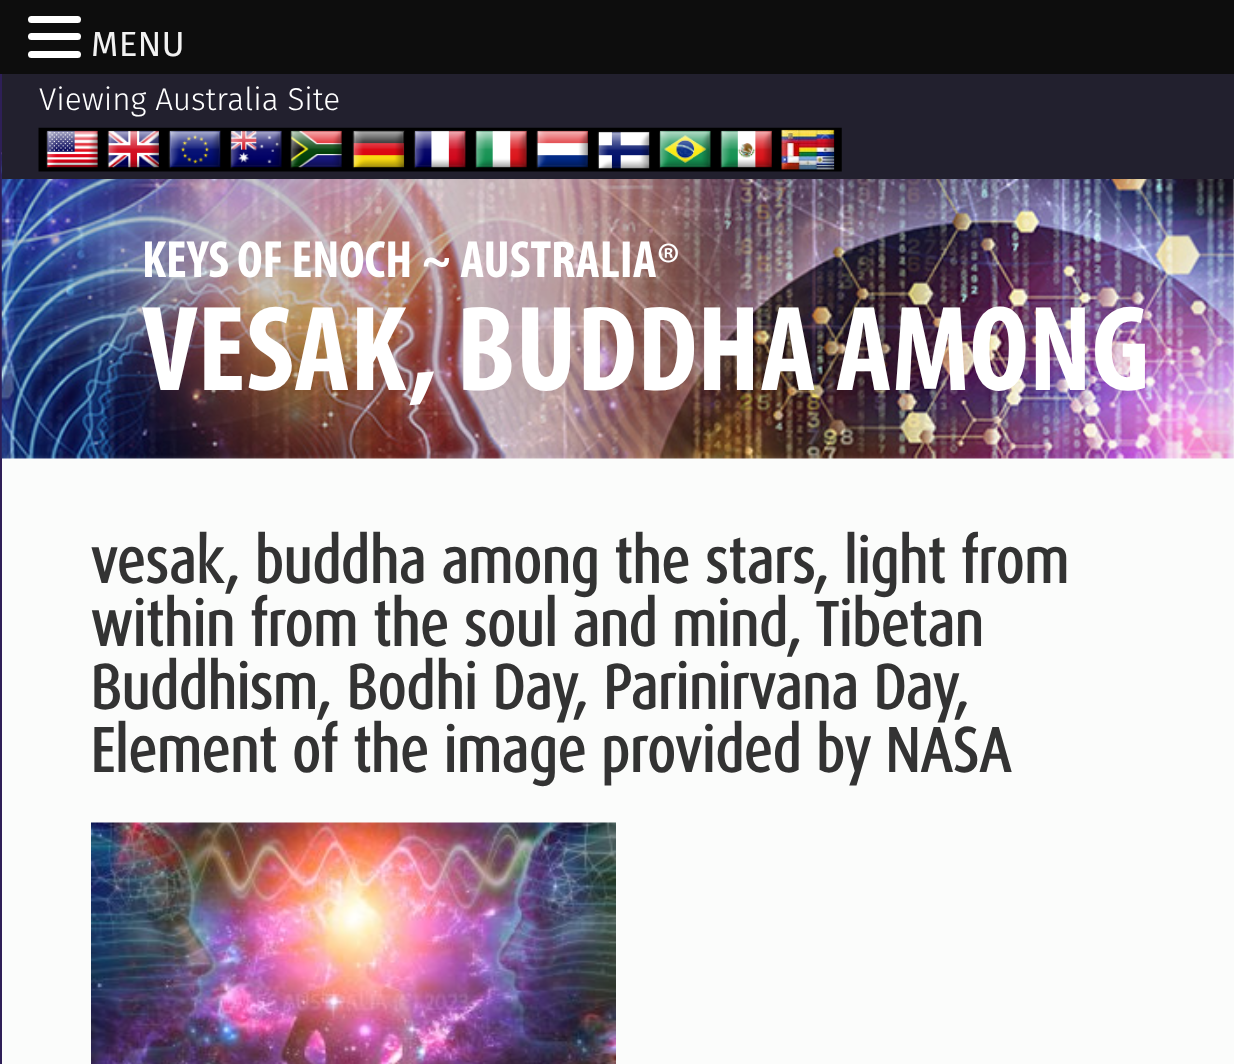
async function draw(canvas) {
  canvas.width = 1234
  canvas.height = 1064
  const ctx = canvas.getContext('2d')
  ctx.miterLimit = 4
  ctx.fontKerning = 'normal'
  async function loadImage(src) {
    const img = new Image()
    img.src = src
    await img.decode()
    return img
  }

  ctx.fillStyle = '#2e1f57'
  ctx.fillRect(0, 0, 1234, 1064)
  ctx.fillStyle = '#0d0d0d'
  ctx.fillRect(0, 0, 1234, 74)
  ctx.fillStyle = '#fff'
  ctx.beginPath()
  ctx.roundRect(28, 16, 53, 7, 3.5)
  ctx.fill()
  ctx.beginPath()
  ctx.roundRect(28, 33, 53, 7, 3.5)
  ctx.fill()
  ctx.beginPath()
  ctx.roundRect(28, 51, 53, 7, 3.5)
  ctx.fill()
  ctx.font = '35px Fira Sans'
  ctx.fillStyle = '#f2f2f2'
  ctx.fillText('MENU', 91, 56)
  ctx.fillStyle = '#fff'
  ctx.fillRect(2, 179, 1232, 280)
  ctx.drawImage(await loadImage('image0.png'), 1, 150, 1233, 309)
  ctx.fillStyle = '#22202e'
  ctx.fillRect(2, 74, 1232, 105)
  ctx.font = '300 31.5px Fira Sans'
  ctx.fillStyle = '#fff'
  ctx.fillText('Viewing Australia Site', 39, 110)
  ctx.drawImage(await loadImage('image1.png'), 38, 127, 804, 45)
  ctx.font = 'bold 52.5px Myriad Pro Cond'
  ctx.fillText('KEYS OF ENOCH ~ AUSTRALIA', 142, 277)
  ctx.font = '61px Myriad Pro Cond'
  ctx.fillText('®', 657, 285)
  ctx.font = 'bold 122.5px Myriad Pro Cond'
  ctx.fillText('VESAK, BUDDHA AMONG', 142, 390)
  ctx.fillStyle = '#fbfcfb'
  ctx.fillRect(2, 459, 1232, 605)
  ctx.font = 'bold 63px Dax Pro'
  ctx.fillStyle = '#333'
  ctx.fillText('vesak, buddha among the stars, light from', 90, 583)
  ctx.fillText('within from the soul and mind, Tibetan', 90, 646)
  ctx.fillText('Buddhism, Bodhi Day, Parinirvana Day,', 90, 709)
  ctx.fillText('Element of the image provided by NASA', 90, 772)
  ctx.drawImage(await loadImage('image2.png'), 91, 822, 525, 242)
}

draw(document.querySelector('canvas'))
